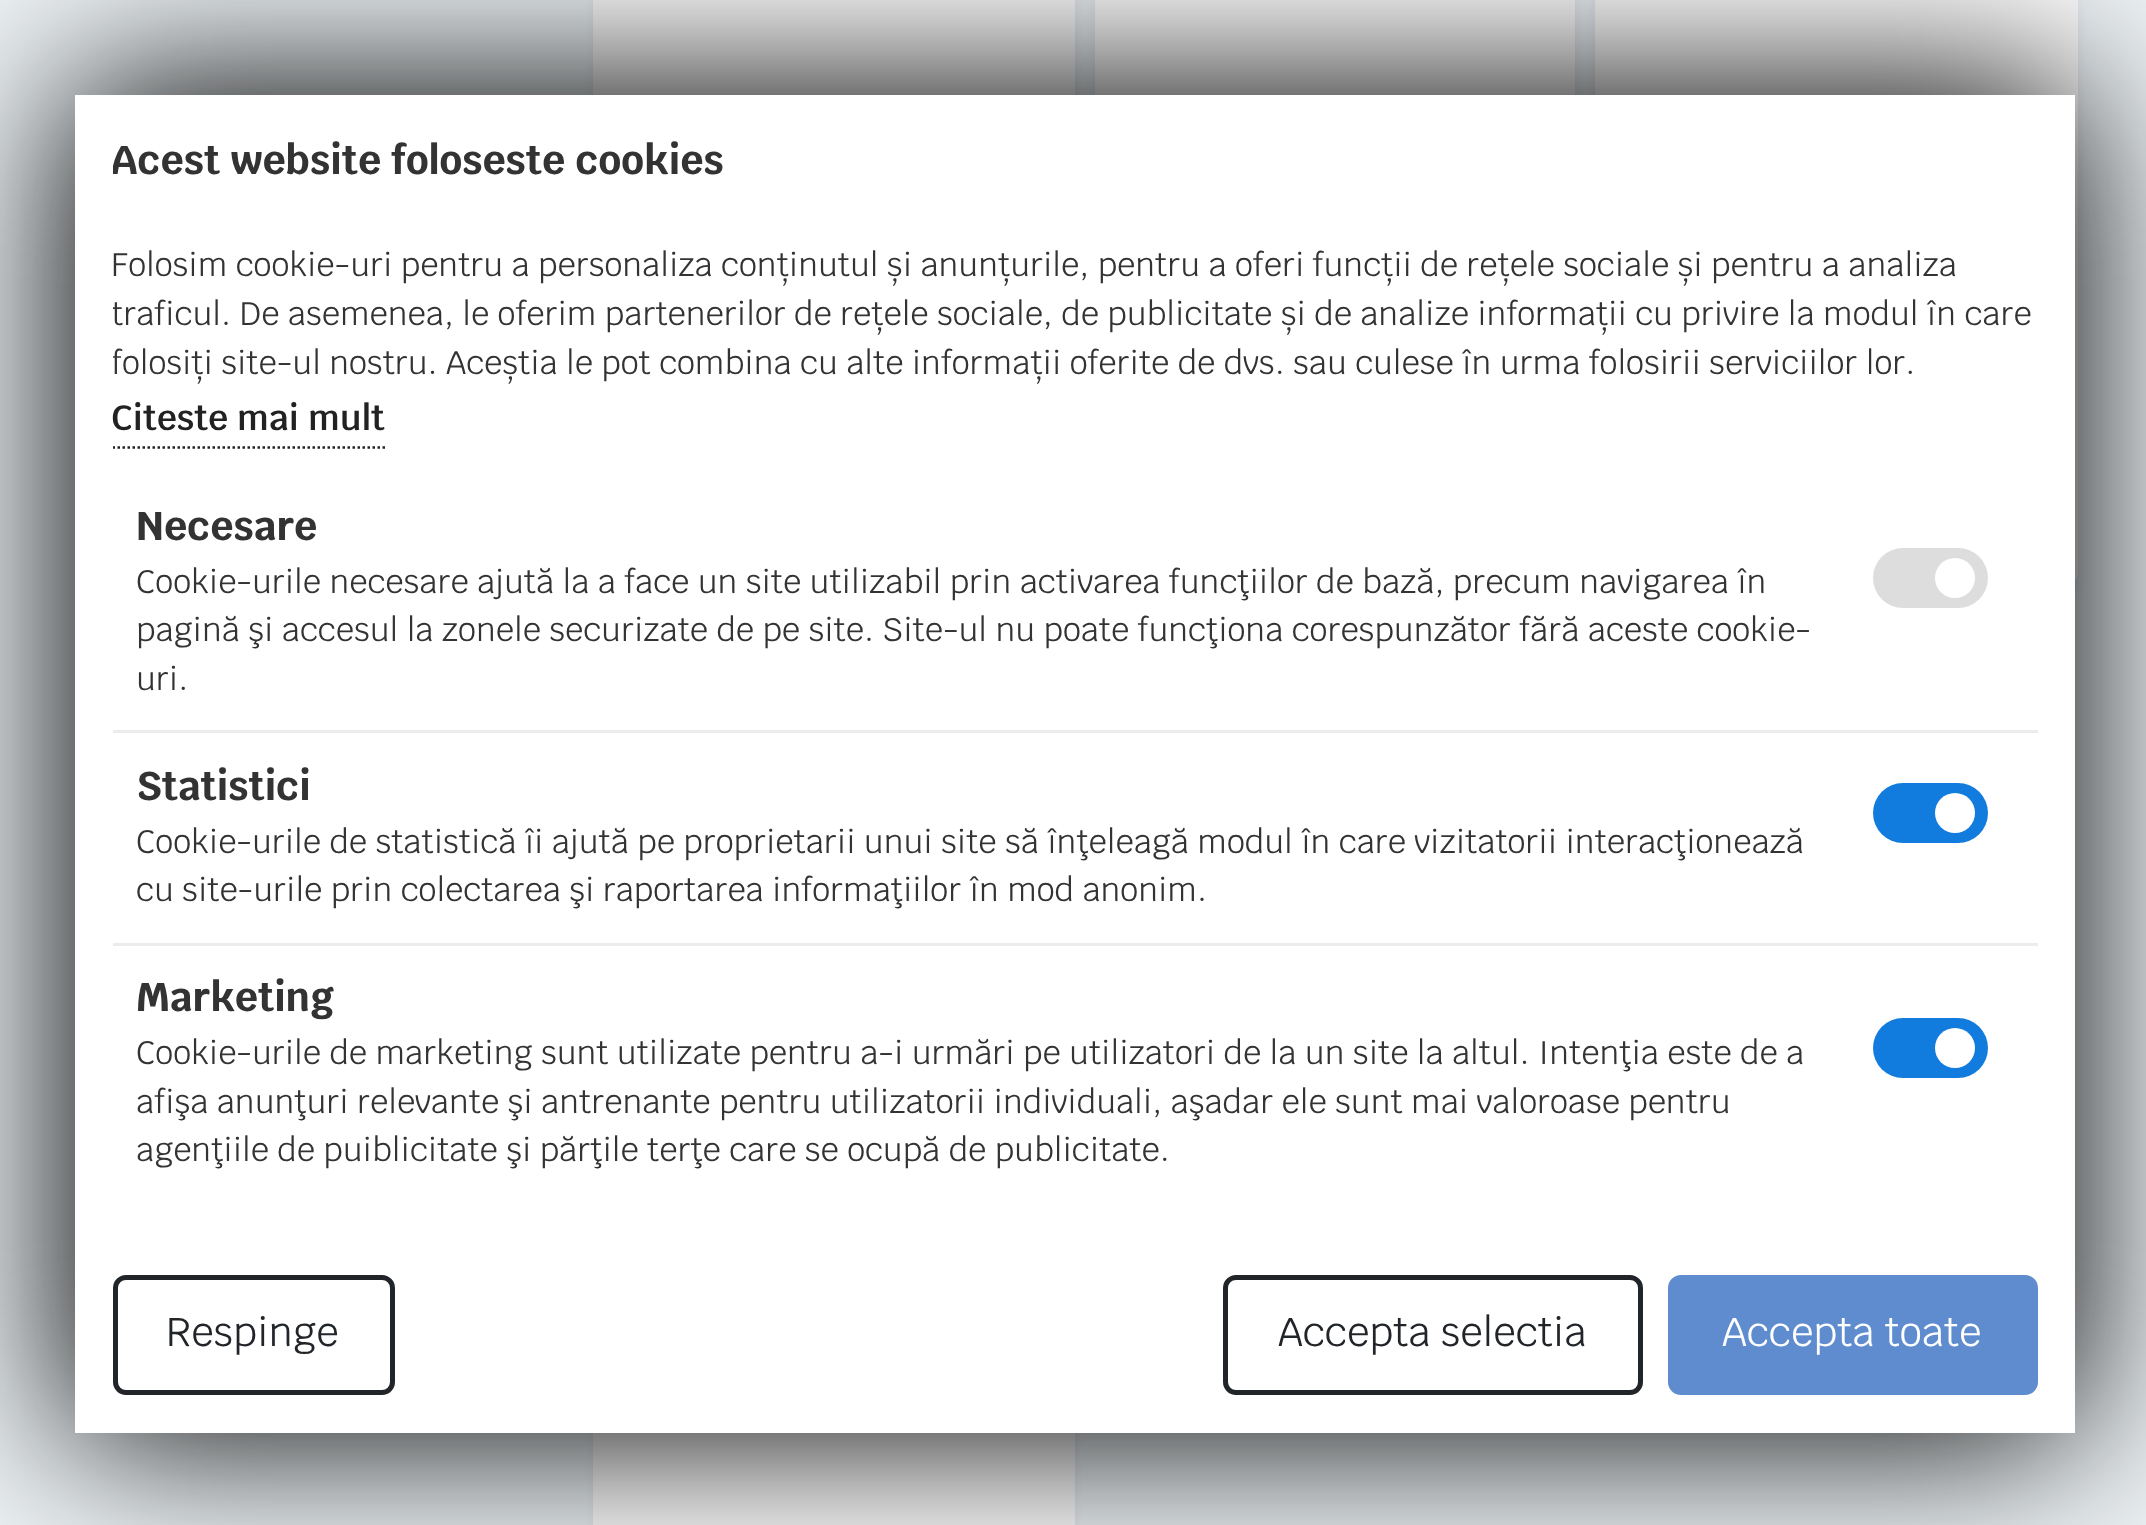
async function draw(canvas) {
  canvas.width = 2146
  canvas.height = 1525
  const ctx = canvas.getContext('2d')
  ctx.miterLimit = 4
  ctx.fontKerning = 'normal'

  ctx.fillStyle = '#eff4f7'
  ctx.fillRect(0, 0, 2146, 1525)
  ctx.fillStyle = '#d9e3eeb8'
  ctx.filter = 'blur(4px)'
  ctx.beginPath()
  ctx.roundRect(593, -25, 482, 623, 13)
  ctx.fill()
  ctx.filter = 'none'
  ctx.fillStyle = '#fff'
  ctx.fillRect(593, 0, 482, 95)
  ctx.fillStyle = '#d9e3eeb8'
  ctx.filter = 'blur(4px)'
  ctx.beginPath()
  ctx.roundRect(1095, -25, 480, 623, 13)
  ctx.fill()
  ctx.filter = 'none'
  ctx.fillStyle = '#fff'
  ctx.fillRect(1095, 0, 480, 95)
  ctx.fillStyle = '#d9e3eeb8'
  ctx.filter = 'blur(4px)'
  ctx.beginPath()
  ctx.roundRect(1595, -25, 483, 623, 13)
  ctx.fill()
  ctx.filter = 'none'
  ctx.fillStyle = '#fff'
  ctx.beginPath()
  ctx.roundRect(1595, -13, 483, 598, 13)
  ctx.fill()
  ctx.fillStyle = '#d9e3eeb8'
  ctx.filter = 'blur(4px)'
  ctx.beginPath()
  ctx.roundRect(593, 718, 482, 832, 13)
  ctx.fill()
  ctx.filter = 'none'
  ctx.fillStyle = '#fff'
  ctx.fillRect(593, 1433, 482, 92)
  ctx.fillStyle = '#000'
  ctx.filter = 'blur(87.5px)'
  ctx.beginPath()
  ctx.rect(65, 85, 2015, 1353)
  ctx.fill()
  ctx.filter = 'none'
  ctx.fillStyle = '#fff'
  ctx.fillRect(75, 95, 2000, 1338)
  ctx.save()
  ctx.beginPath()
  ctx.rect(113, 133, 1925, 1067)
  ctx.clip()
  ctx.font = 'bold 40px Krub'
  ctx.fillStyle = '#333'
  ctx.fillText('Acest website foloseste cookies', 111, 174)
  ctx.restore()
  ctx.font = '32.5px Krub'
  ctx.fillStyle = '#333'
  ctx.fillText('Folosim cookie-uri pentru a personaliza conținutul și anunțurile, pentru a oferi funcții de rețele sociale și pentru a analiza', 111, 276)
  ctx.save()
  ctx.beginPath()
  ctx.rect(113, 133, 1925, 1067)
  ctx.clip()
  ctx.fillText('traficul. De asemenea, le oferim partenerilor de rețele sociale, de publicitate și de analize informații cu privire la modul în care', 111, 325)
  ctx.fillText('folosiți site-ul nostru. Aceștia le pot combina cu alte informații oferite de dvs. sau culese în urma folosirii serviciilor lor.', 111, 374)
  ctx.beginPath()
  ctx.moveTo(112.5, 447.5)
  ctx.lineTo(385, 447.5)
  ctx.strokeStyle = '#222'
  ctx.lineWidth = 2.5
  ctx.setLineDash([2.5, 2.5])
  ctx.stroke()
  ctx.restore()
  ctx.font = '600 35px Krub'
  ctx.fillStyle = '#222'
  ctx.fillText('Citeste mai mult', 111, 430)
  ctx.fillStyle = '#ececec'
  ctx.fillRect(113, 730, 1925, 3)
  ctx.font = 'bold 40px Krub'
  ctx.fillStyle = '#333'
  ctx.fillText('Necesare', 136, 540)
  ctx.font = '32.5px Krub'
  ctx.fillText('Cookie-urile necesare ajută la a face un site utilizabil prin activarea funcţiilor de bază, precum navigarea în', 136, 593)
  ctx.fillText('pagină şi accesul la zonele securizate de pe site. Site-ul nu poate funcţiona corespunzător fără aceste cookie-', 136, 641)
  ctx.fillText('uri.', 136, 690)
  ctx.fillStyle = '#ddd'
  ctx.beginPath()
  ctx.roundRect(1873, 548, 115, 60, 30)
  ctx.fill()
  ctx.fillStyle = '#fff'
  ctx.beginPath()
  ctx.arc(1955, 578, 20, 0, 2 * Math.PI)
  ctx.fill()
  ctx.fillStyle = '#ececec'
  ctx.fillRect(113, 943, 1925, 3)
  ctx.font = 'bold 40px Krub'
  ctx.fillStyle = '#333'
  ctx.fillText('Statistici', 136, 800)
  ctx.font = '32.5px Krub'
  ctx.fillText('Cookie-urile de statistică îi ajută pe proprietarii unui site să înţeleagă modul în care vizitatorii interacţionează', 136, 853)
  ctx.fillText('cu site-urile prin colectarea şi raportarea informaţiilor în mod anonim.', 136, 901)
  ctx.fillStyle = '#127cde'
  ctx.beginPath()
  ctx.roundRect(1873, 783, 115, 60, 30)
  ctx.fill()
  ctx.fillStyle = '#fff'
  ctx.beginPath()
  ctx.arc(1955, 813, 20, 0, 2 * Math.PI)
  ctx.fill()
  ctx.font = 'bold 40px Krub'
  ctx.fillStyle = '#333'
  ctx.fillText('Marketing', 136, 1011)
  ctx.font = '32.5px Krub'
  ctx.fillText('Cookie-urile de marketing sunt utilizate pentru a-i urmări pe utilizatori de la un site la altul. Intenţia este de a', 136, 1064)
  ctx.fillText('afişa anunţuri relevante şi antrenante pentru utilizatorii individuali, aşadar ele sunt mai valoroase pentru', 136, 1113)
  ctx.fillText('agenţiile de puiblicitate şi părţile terţe care se ocupă de publicitate.', 136, 1161)
  ctx.fillStyle = '#127cde'
  ctx.beginPath()
  ctx.roundRect(1873, 1018, 115, 60, 30)
  ctx.fill()
  ctx.fillStyle = '#fff'
  ctx.beginPath()
  ctx.arc(1955, 1048, 20, 0, 2 * Math.PI)
  ctx.fill()
  ctx.beginPath()
  ctx.roundRect(115.5, 1277.5, 277, 115, 10.5)
  ctx.strokeStyle = '#212529'
  ctx.lineWidth = 5
  ctx.stroke()
  ctx.font = '40px Krub'
  ctx.fillStyle = '#212529'
  ctx.fillText('Respinge', 166, 1346)
  ctx.beginPath()
  ctx.roundRect(1225.5, 1277.5, 415, 115, 10.5)
  ctx.stroke()
  ctx.fillText('Accepta selectia', 1278, 1346)
  ctx.fillStyle = '#5f8ccf'
  ctx.beginPath()
  ctx.roundRect(1670.5, 1277.5, 365, 115, 10.5)
  ctx.fill()
  ctx.strokeStyle = '#5f8ccf'
  ctx.stroke()
  ctx.fillStyle = '#fff'
  ctx.fillText('Accepta toate', 1722, 1346)
}

draw(document.querySelector('canvas'))
